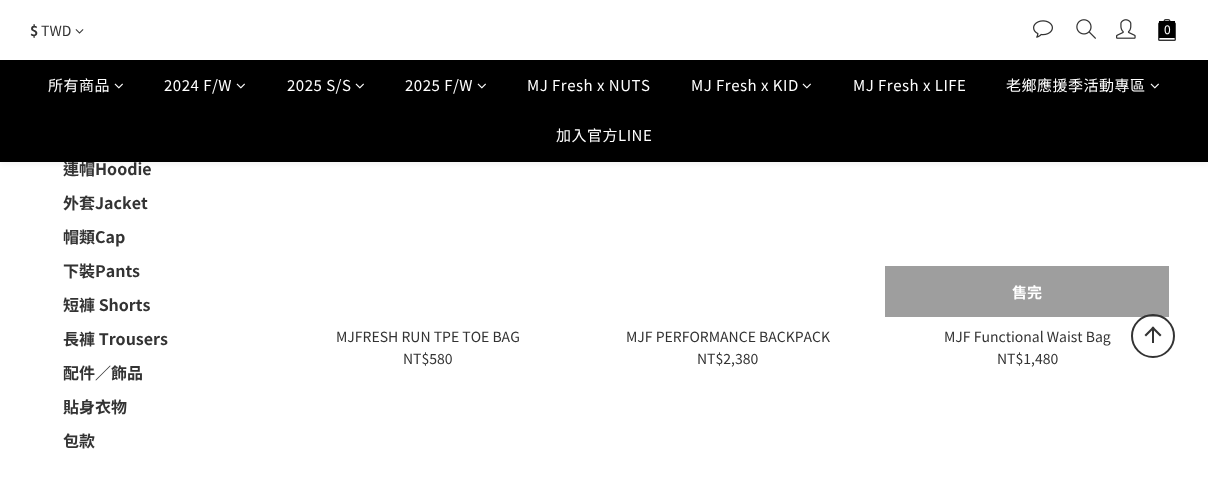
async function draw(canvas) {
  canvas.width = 1208
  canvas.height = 488
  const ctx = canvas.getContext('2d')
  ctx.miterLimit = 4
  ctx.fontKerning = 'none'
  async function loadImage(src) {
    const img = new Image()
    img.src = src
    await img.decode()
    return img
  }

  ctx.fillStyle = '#fff'
  ctx.fillRect(0, 0, 1208, 488)
  ctx.fillStyle = '#0000000f'
  ctx.filter = 'blur(3px)'
  ctx.beginPath()
  ctx.rect(0, 2, 1208, 162)
  ctx.fill()
  ctx.filter = 'none'
  ctx.fillStyle = '#fff'
  ctx.fillRect(0, 0, 1208, 60)
  ctx.font = 'bold 14px Noto Sans TC'
  ctx.fillStyle = '#333'
  ctx.fillText('$', 30, 36)
  ctx.font = '14px Noto Sans TC'
  ctx.fillText('TWD', 41, 36)
  ctx.drawImage(await loadImage('image0.png'), 75, 29, 9, 5)
  ctx.drawImage(await loadImage('image1.png'), 1033, 20, 20, 18)
  ctx.drawImage(await loadImage('image2.png'), 1076, 19, 20, 20)
  ctx.drawImage(await loadImage('image3.png'), 1116, 19, 20, 20)
  ctx.drawImage(await loadImage('image4.png'), 1158, 19, 18, 22)
  ctx.fillStyle = '#000'
  ctx.fillRect(1159, 21, 16, 17)
  ctx.font = '12px Noto Sans TC'
  ctx.fillStyle = '#fff'
  ctx.fillText('0', 1164, 34)
  ctx.font = 'bold 16px Noto Sans TC'
  ctx.fillStyle = '#333'
  ctx.fillText('連帽Hoodie', 63, 175)
  ctx.fillStyle = '#000'
  ctx.fillRect(0, 60, 1208, 102)
  ctx.letterSpacing = '0.5px'
  ctx.font = '15px Noto Sans TC'
  ctx.fillStyle = '#fff'
  ctx.fillText('所有商品', 48, 91)
  ctx.drawImage(await loadImage('image5.png'), 114, 83, 9, 6)
  ctx.fillText('2024 F/W', 164, 91)
  ctx.drawImage(await loadImage('image5.png'), 236, 83, 9, 6)
  ctx.fillText('2025 S/S', 287, 91)
  ctx.drawImage(await loadImage('image5.png'), 355, 83, 9, 6)
  ctx.fillText('2025 F/W', 405, 91)
  ctx.drawImage(await loadImage('image5.png'), 477, 83, 9, 6)
  ctx.fillText('MJ Fresh x NUTS', 527, 91)
  ctx.fillText('MJ Fresh x KID', 691, 91)
  ctx.drawImage(await loadImage('image5.png'), 802, 83, 9, 6)
  ctx.fillText('MJ Fresh x LIFE', 853, 91)
  ctx.fillText('老鄉應援季活動專區', 1006, 91)
  ctx.drawImage(await loadImage('image5.png'), 1150, 83, 9, 6)
  ctx.fillText('加入官方LINE', 556, 141)
  ctx.letterSpacing = '0px'
  ctx.font = 'bold 16px Noto Sans TC'
  ctx.fillStyle = '#333'
  ctx.fillText('外套Jacket', 63, 209)
  ctx.fillText('帽類Cap', 63, 243)
  ctx.fillText('下裝Pants', 63, 277)
  ctx.fillText('短褲 Shorts', 63, 311)
  ctx.fillText('長褲 Trousers', 63, 345)
  ctx.fillText('配件／飾品', 63, 379)
  ctx.fillText('貼身衣物', 63, 413)
  ctx.fillText('包款', 63, 447)
  ctx.font = '14px Noto Sans TC'
  ctx.fillText('MJFRESH RUN TPE TOE BAG', 336, 342)
  ctx.fillText('NT$580', 403, 364)
  ctx.fillText('MJF PERFORMANCE BACKPACK', 626, 342)
  ctx.fillText('NT$2,380', 697, 364)
  ctx.fillStyle = '#9e9e9e'
  ctx.fillRect(885, 266, 284, 51)
  ctx.font = 'bold 15px Noto Sans TC'
  ctx.fillStyle = '#fff'
  ctx.fillText('售完', 1012, 298)
  ctx.font = '14px Noto Sans TC'
  ctx.fillStyle = '#333'
  ctx.fillText('MJF Functional Waist Bag', 944, 342)
  ctx.fillText('NT$1,480', 997, 364)
  ctx.beginPath()
  ctx.arc(1153, 336, 21, 0, 2 * Math.PI)
  ctx.strokeStyle = '#333'
  ctx.lineWidth = 2
  ctx.stroke()
  ctx.beginPath()
  ctx.moveTo(1153, 326.5)
  ctx.lineTo(1161.5, 335)
  ctx.lineTo(1160, 336.5)
  ctx.lineTo(1151.5, 328)
  ctx.closePath()
  ctx.fill()
  ctx.beginPath()
  ctx.moveTo(1153, 326.5)
  ctx.lineTo(1154.5, 328)
  ctx.lineTo(1146, 336.5)
  ctx.lineTo(1144.5, 335)
  ctx.closePath()
  ctx.fill()
  ctx.fillRect(1152, 329, 2, 14)
}

draw(document.querySelector('canvas'))
